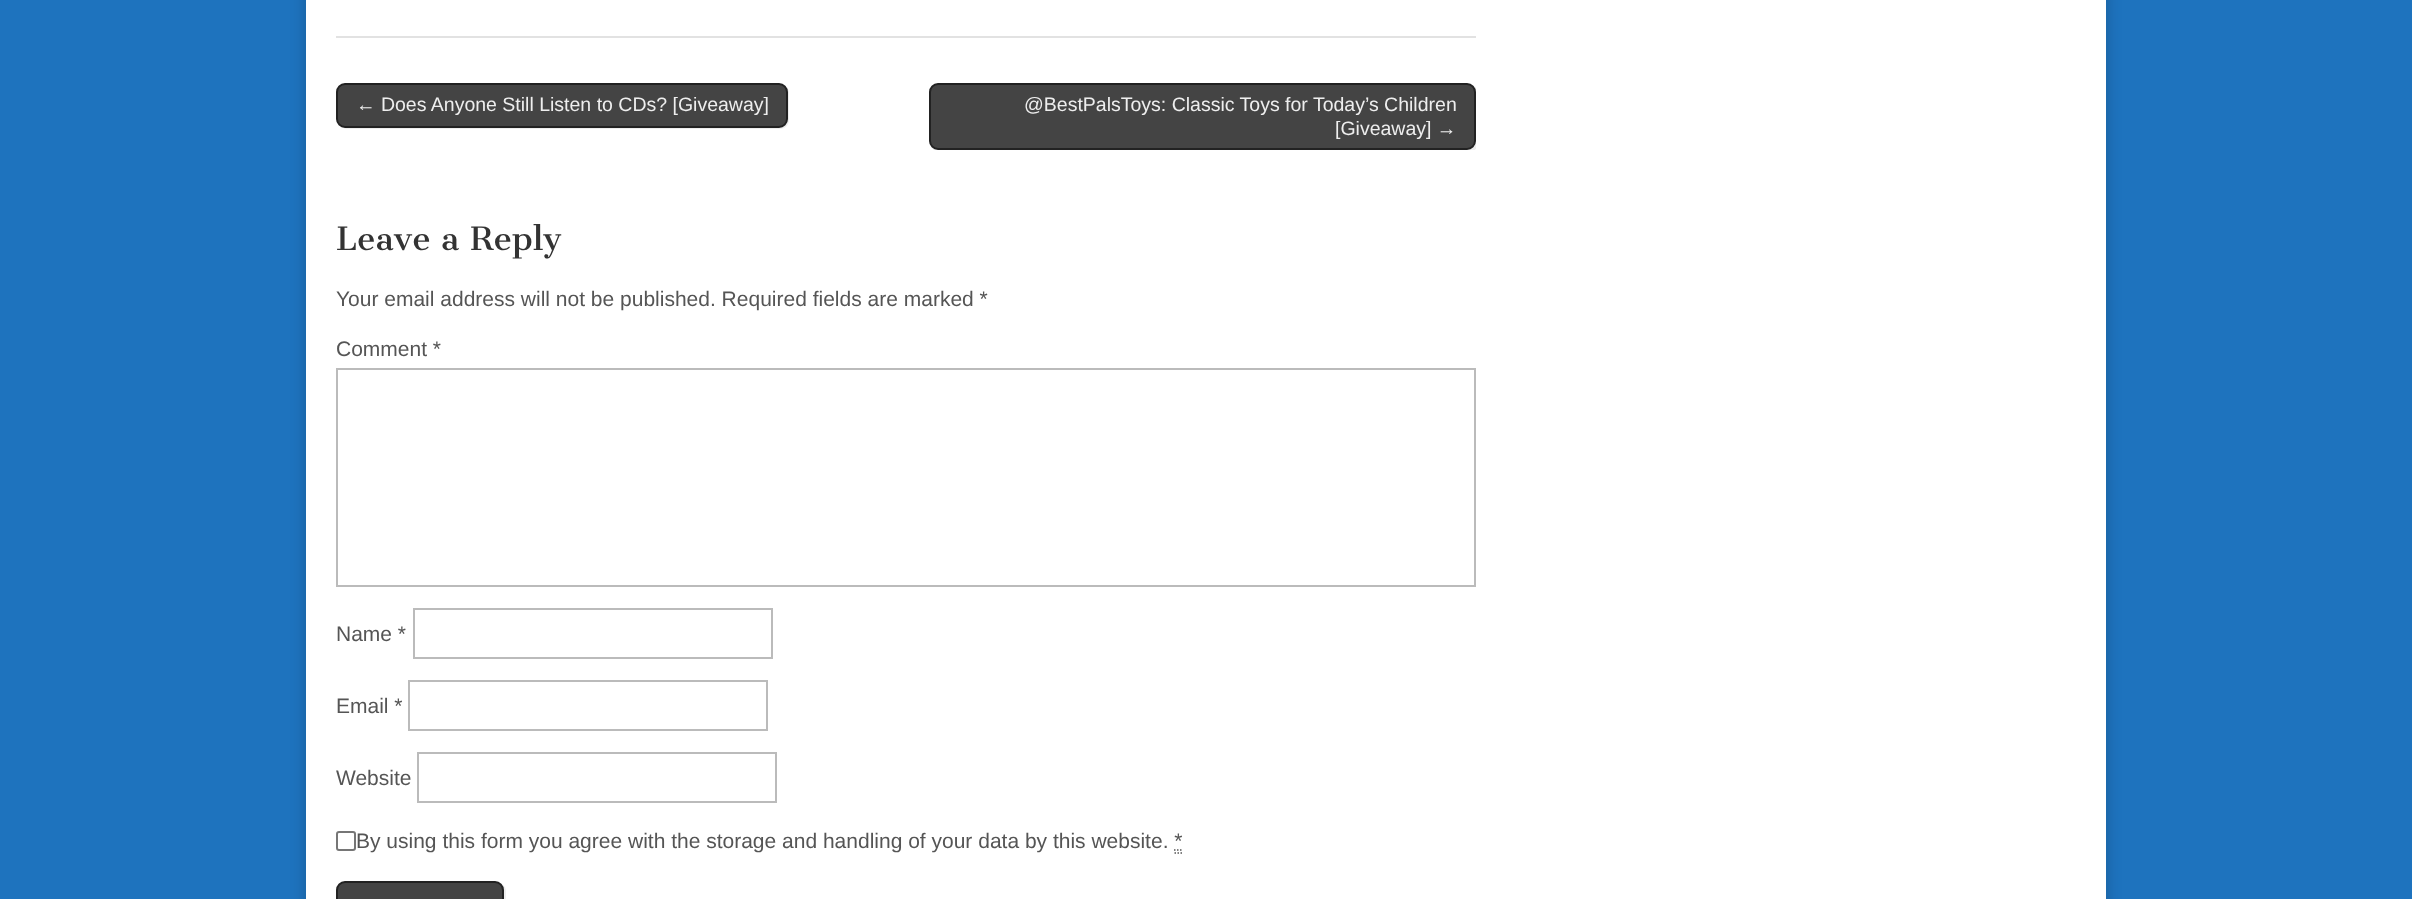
async function draw(canvas) {
  canvas.width = 2412
  canvas.height = 899
  const ctx = canvas.getContext('2d')
  ctx.miterLimit = 4
  ctx.fontKerning = 'normal'

  ctx.fillStyle = '#1e73be'
  ctx.fillRect(0, 0, 2412, 899)
  ctx.fillStyle = '#00000033'
  ctx.filter = 'blur(7.5px)'
  ctx.beginPath()
  ctx.rect(306, -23, 1800, 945)
  ctx.fill()
  ctx.filter = 'none'
  ctx.fillStyle = '#fff'
  ctx.fillRect(306, 0, 1800, 899)
  ctx.fillStyle = '#e2e2e2'
  ctx.fillRect(336, 36, 1140, 2)
  ctx.fillStyle = '#eee'
  ctx.beginPath()
  ctx.moveTo(341, 126)
  ctx.bezierCurveTo(342, 128, 345, 129, 347, 129)
  ctx.lineTo(780, 129)
  ctx.bezierCurveTo(785, 129, 789, 125, 789, 120)
  ctx.lineTo(789, 93)
  ctx.bezierCurveTo(789, 90, 788, 88, 786, 86)
  ctx.bezierCurveTo(787, 87, 788, 89, 788, 92)
  ctx.lineTo(788, 118)
  ctx.bezierCurveTo(788, 123, 783, 128, 778, 128)
  ctx.lineTo(345, 128)
  ctx.bezierCurveTo(343, 128, 342, 127, 341, 126)
  ctx.closePath()
  ctx.fill()
  ctx.fillStyle = '#444'
  ctx.beginPath()
  ctx.roundRect(337, 84, 450, 43, 8)
  ctx.fill()
  ctx.strokeStyle = '#222'
  ctx.lineWidth = 2
  ctx.stroke()
  ctx.font = '19.5px Liberation Sans'
  ctx.fillStyle = '#eee'
  ctx.fillText('← Does Anyone Still Listen to CDs? [Giveaway]', 356, 111)
  ctx.save()
  ctx.beginPath()
  ctx.rect(336, 83, 1140, 67)
  ctx.clip()
  ctx.beginPath()
  ctx.moveTo(931, 147)
  ctx.bezierCurveTo(933, 150, 936, 152, 939, 152)
  ctx.lineTo(1469, 152)
  ctx.bezierCurveTo(1474, 152, 1478, 148, 1478, 143)
  ctx.lineTo(1478, 93)
  ctx.bezierCurveTo(1478, 90, 1476, 87, 1473, 85)
  ctx.bezierCurveTo(1475, 87, 1476, 89, 1476, 92)
  ctx.lineTo(1476, 141)
  ctx.bezierCurveTo(1476, 146, 1472, 150, 1467, 150)
  ctx.lineTo(938, 150)
  ctx.bezierCurveTo(935, 150, 933, 149, 931, 147)
  ctx.closePath()
  ctx.fill()
  ctx.restore()
  ctx.fillStyle = '#444'
  ctx.beginPath()
  ctx.roundRect(930, 84, 545, 65, 8)
  ctx.fill()
  ctx.stroke()
  ctx.fillStyle = '#eee'
  ctx.fillText('@BestPalsToys: Classic Toys for Today’s Children', 1024, 111)
  ctx.fillText('[Giveaway] →', 1335, 135)
  ctx.font = '31.5px Cantata One'
  ctx.fillStyle = '#333'
  ctx.fillText('Leave a Reply', 336, 250)
  ctx.font = '21px Liberation Sans'
  ctx.fillStyle = '#555'
  ctx.fillText('Your email address will not be published. Required fields are marked *', 336, 306)
  ctx.fillText('Comment *', 336, 356)
  ctx.strokeStyle = '#bbb'
  ctx.strokeRect(337, 369, 1138, 217)
  ctx.fillText('Name *', 336, 641)
  ctx.strokeRect(414, 609, 358, 49)
  ctx.fillText('Email *', 336, 713)
  ctx.strokeRect(409, 681, 358, 49)
  ctx.fillText('Website', 336, 785)
  ctx.strokeRect(418, 753, 358, 49)
  ctx.beginPath()
  ctx.roundRect(337, 832, 18, 18, 2)
  ctx.strokeStyle = '#767676'
  ctx.stroke()
  ctx.fillText('By using this form you agree with the storage and handling of your data by this website. *', 356, 848)
  ctx.beginPath()
  ctx.moveTo(1174.5, 853)
  ctx.lineTo(1176, 853)
  ctx.moveTo(1177.5, 853)
  ctx.lineTo(1179, 853)
  ctx.moveTo(1180.5, 853)
  ctx.lineTo(1182, 853)
  ctx.moveTo(1174, 850)
  ctx.lineTo(1175.5, 850)
  ctx.moveTo(1177, 850)
  ctx.lineTo(1178.5, 850)
  ctx.moveTo(1180, 850)
  ctx.lineTo(1181.5, 850)
  ctx.strokeStyle = '#555'
  ctx.lineWidth = 1.5
  ctx.stroke()
  ctx.fillStyle = '#eee'
  ctx.beginPath()
  ctx.moveTo(341, 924)
  ctx.bezierCurveTo(342, 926, 345, 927, 347, 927)
  ctx.lineTo(497, 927)
  ctx.bezierCurveTo(502, 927, 506, 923, 506, 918)
  ctx.lineTo(506, 891)
  ctx.bezierCurveTo(506, 888, 504, 885, 501, 883)
  ctx.bezierCurveTo(503, 885, 504, 887, 504, 890)
  ctx.lineTo(504, 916)
  ctx.bezierCurveTo(504, 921, 500, 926, 495, 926)
  ctx.lineTo(345, 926)
  ctx.bezierCurveTo(343, 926, 342, 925, 341, 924)
  ctx.closePath()
  ctx.fill()
  ctx.fillStyle = '#444'
  ctx.beginPath()
  ctx.roundRect(337, 882, 166, 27, 8)
  ctx.fill()
  ctx.strokeStyle = '#222'
  ctx.lineWidth = 2
  ctx.stroke()
}

draw(document.querySelector('canvas'))
